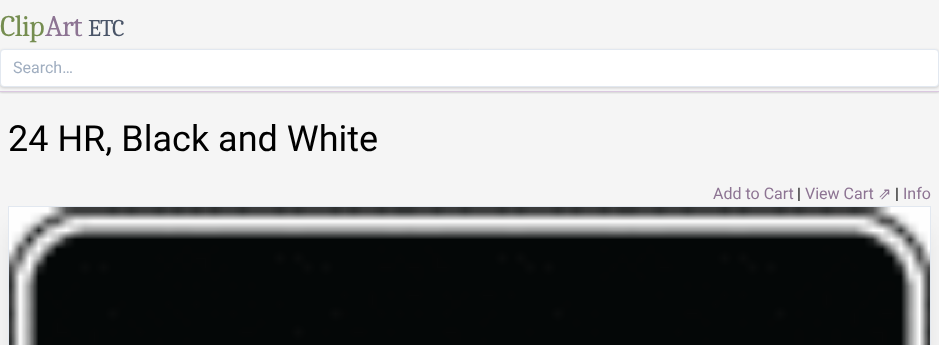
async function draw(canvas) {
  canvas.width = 939
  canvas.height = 345
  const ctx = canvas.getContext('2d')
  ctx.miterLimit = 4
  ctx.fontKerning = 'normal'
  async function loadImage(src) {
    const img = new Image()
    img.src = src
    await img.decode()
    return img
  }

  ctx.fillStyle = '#f5f5f5'
  ctx.fillRect(0, 0, 939, 345)
  ctx.save()
  ctx.beginPath()
  ctx.rect(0, 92, 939, 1)
  ctx.clip()
  ctx.fillStyle = '#0000000f'
  ctx.filter = 'blur(1px)'
  ctx.beginPath()
  ctx.rect(0, 1, 939, 92)
  ctx.fill()
  ctx.filter = 'none'
  ctx.restore()
  ctx.save()
  ctx.beginPath()
  ctx.rect(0, 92, 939, 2)
  ctx.clip()
  ctx.fillStyle = '#0000001a'
  ctx.filter = 'blur(1.5px)'
  ctx.beginPath()
  ctx.rect(0, 1, 939, 92)
  ctx.fill()
  ctx.filter = 'none'
  ctx.restore()
  ctx.fillStyle = '#dbc8e0'
  ctx.fillRect(0, 91, 939, 1)
  ctx.letterSpacing = '-1px'
  ctx.font = '30px Caladea'
  ctx.fillStyle = '#758d50'
  ctx.fillText('Clip', 0, 36)
  ctx.fillStyle = '#8d7493'
  ctx.fillText('Art', 45, 36)
  ctx.font = '24px Caladea'
  ctx.fillStyle = '#4a5568'
  ctx.fillText('ETC', 88, 36)
  ctx.fillStyle = '#0000000f'
  ctx.filter = 'blur(1px)'
  ctx.beginPath()
  ctx.roundRect(0, 50, 939, 38, 4)
  ctx.fill()
  ctx.filter = 'none'
  ctx.fillStyle = '#0000001a'
  ctx.filter = 'blur(1.5px)'
  ctx.beginPath()
  ctx.roundRect(0, 50, 939, 38, 4)
  ctx.fill()
  ctx.filter = 'none'
  ctx.fillStyle = '#fff'
  ctx.beginPath()
  ctx.roundRect(0.5, 49.5, 938, 37, 3.5)
  ctx.fill()
  ctx.strokeStyle = '#e2e8f0'
  ctx.stroke()
  ctx.letterSpacing = '0px'
  ctx.font = '16px Roboto'
  ctx.fillStyle = '#a0aec0'
  ctx.fillText('Search…', 13, 73)
  ctx.font = '36px Roboto'
  ctx.fillStyle = '#000'
  ctx.fillText('24 HR, Black and White', 8, 151)
  ctx.font = '16px Roboto'
  ctx.fillStyle = '#8d7493'
  ctx.fillText('Add to Cart', 713, 199)
  ctx.fillStyle = '#000'
  ctx.fillText('|', 797, 199)
  ctx.fillStyle = '#8d7493'
  ctx.fillText('View Cart', 805, 199)
  ctx.font = '16px DejaVu Sans'
  ctx.fillText('⇗', 878, 199)
  ctx.font = '16px Roboto'
  ctx.fillStyle = '#000'
  ctx.fillText('|', 895, 199)
  ctx.fillStyle = '#8d7493'
  ctx.fillText('Info', 903, 199)
  ctx.fillStyle = '#0000001a'
  ctx.filter = 'blur(12.5px)'
  ctx.beginPath()
  ctx.rect(13, 231, 913, 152)
  ctx.fill()
  ctx.filter = 'none'
  ctx.strokeRect(8.5, 206.5, 922, 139)
  ctx.drawImage(await loadImage('image0.png'), 9, 207, 921, 138)
}

draw(document.querySelector('canvas'))
